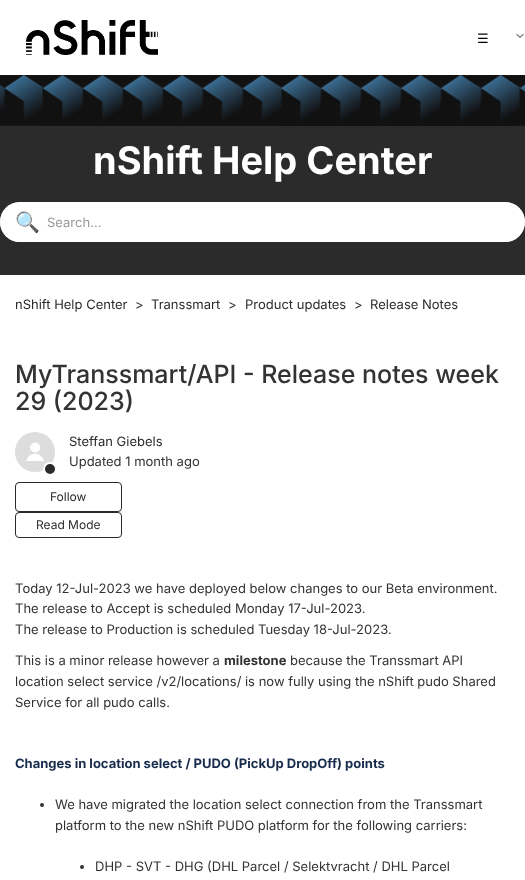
async function draw(canvas) {
  canvas.width = 525
  canvas.height = 880
  const ctx = canvas.getContext('2d')
  ctx.miterLimit = 4
  ctx.fontKerning = 'normal'
  async function loadImage(src) {
    const img = new Image()
    img.src = src
    await img.decode()
    return img
  }

  ctx.fillStyle = '#fff'
  ctx.fillRect(0, 0, 525, 880)
  ctx.drawImage(await loadImage('image0.png'), 26, 20, 132, 35)
  ctx.font = '13px DejaVu Sans'
  ctx.fillStyle = '#000'
  ctx.fillText('☰', 477, 43)
  ctx.beginPath()
  ctx.moveTo(517, 34.5)
  ctx.bezierCurveTo(520.5, 38, 519.5, 38, 523, 34.5)
  ctx.strokeStyle = '#000'
  ctx.lineCap = 'round'
  ctx.stroke()
  ctx.drawImage(await loadImage('image1.png'), 0, 75, 525, 200)
  ctx.font = 'bold 38px Inter'
  ctx.fillStyle = '#fff'
  ctx.fillText('nShift Help Center', 93, 174)
  ctx.beginPath()
  ctx.roundRect(0, 202, 525, 40, 20)
  ctx.fill()
  ctx.beginPath()
  ctx.roundRect(1, 203, 523, 38, 19)
  ctx.strokeStyle = '#ffffffba'
  ctx.lineWidth = 2
  ctx.stroke()
  ctx.font = '20px Noto Color Emoji'
  ctx.fillStyle = '#333'
  ctx.fillText('🔍', 15, 229)
  ctx.font = '13px Inter'
  ctx.fillStyle = '#999'
  ctx.fillText('Search...', 47, 227)
  ctx.fillStyle = '#2b2b2b'
  ctx.fillText('nShift Help Center', 15, 309)
  ctx.fillStyle = '#333'
  ctx.fillText('>', 135, 309)
  ctx.fillStyle = '#2b2b2b'
  ctx.fillText('Transsmart', 151, 309)
  ctx.fillStyle = '#333'
  ctx.fillText('>', 228, 309)
  ctx.fillStyle = '#2b2b2b'
  ctx.fillText('Product updates', 245, 309)
  ctx.fillStyle = '#333'
  ctx.fillText('>', 354, 309)
  ctx.fillStyle = '#2b2b2b'
  ctx.fillText('Release Notes', 370, 309)
  ctx.font = '500 25px Inter'
  ctx.fillStyle = '#333'
  ctx.fillText('MyTranssmart/API - Release notes week', 15, 383)
  ctx.fillText('29 (2023)', 15, 410)
  ctx.drawImage(await loadImage('image2.png'), 15, 432, 40, 40)
  ctx.fillStyle = '#2b2b2b'
  ctx.beginPath()
  ctx.arc(50, 469, 6, 0, 2 * Math.PI)
  ctx.fill()
  ctx.strokeStyle = '#fff'
  ctx.stroke()
  ctx.font = '13px Inter'
  ctx.fillText('Steffan Giebels', 69, 446)
  ctx.fillStyle = '#333'
  ctx.fillText('Updated 1 month ago', 69, 466)
  ctx.beginPath()
  ctx.roundRect(15.5, 482.5, 106, 29, 3.5)
  ctx.strokeStyle = '#2b2b2b'
  ctx.lineWidth = 1
  ctx.stroke()
  ctx.font = '12px Inter'
  ctx.fillStyle = '#2b2b2b'
  ctx.fillText('Follow', 50, 501)
  ctx.beginPath()
  ctx.roundRect(15.5, 512.5, 106, 25, 3.5)
  ctx.stroke()
  ctx.fillText('Read Mode', 36, 529)
  ctx.font = '13px Inter'
  ctx.fillStyle = '#333'
  ctx.fillText('Today 12-Jul-2023 we have deployed below changes to our Beta environment.', 15, 593)
  ctx.fillText('The release to Accept is scheduled Monday 17-Jul-2023.', 15, 613)
  ctx.fillText('The release to Production is scheduled Tuesday 18-Jul-2023.', 15, 634)
  ctx.fillText('This is a minor release however a', 15, 665)
  ctx.font = 'bold 13px Inter'
  ctx.fillText('milestone', 224, 665)
  ctx.font = '13px Inter'
  ctx.fillText('because the Transsmart API', 290, 665)
  ctx.fillText('location select service /v2/locations/ is now fully using the nShift pudo Shared', 15, 686)
  ctx.fillText('Service for all pudo calls.', 15, 707)
  ctx.font = 'bold 13px Inter'
  ctx.fillStyle = '#172b4d'
  ctx.fillText('Changes in location select / PUDO (PickUp DropOff) points', 15, 768)
  ctx.fillStyle = '#333'
  ctx.beginPath()
  ctx.arc(42, 805, 2, 0, 2 * Math.PI)
  ctx.fill()
  ctx.font = '13px Inter'
  ctx.fillText('We have migrated the location select connection from the Transsmart', 55, 809)
  ctx.fillText('platform to the new nShift PUDO platform for the following carriers:', 55, 830)
  ctx.beginPath()
  ctx.arc(82, 867, 2, 0, 2 * Math.PI)
  ctx.fill()
  ctx.fillText('DHP - SVT - DHG (DHL Parcel / Selektvracht / DHL Parcel', 95, 871)
}

draw(document.querySelector('canvas'))
